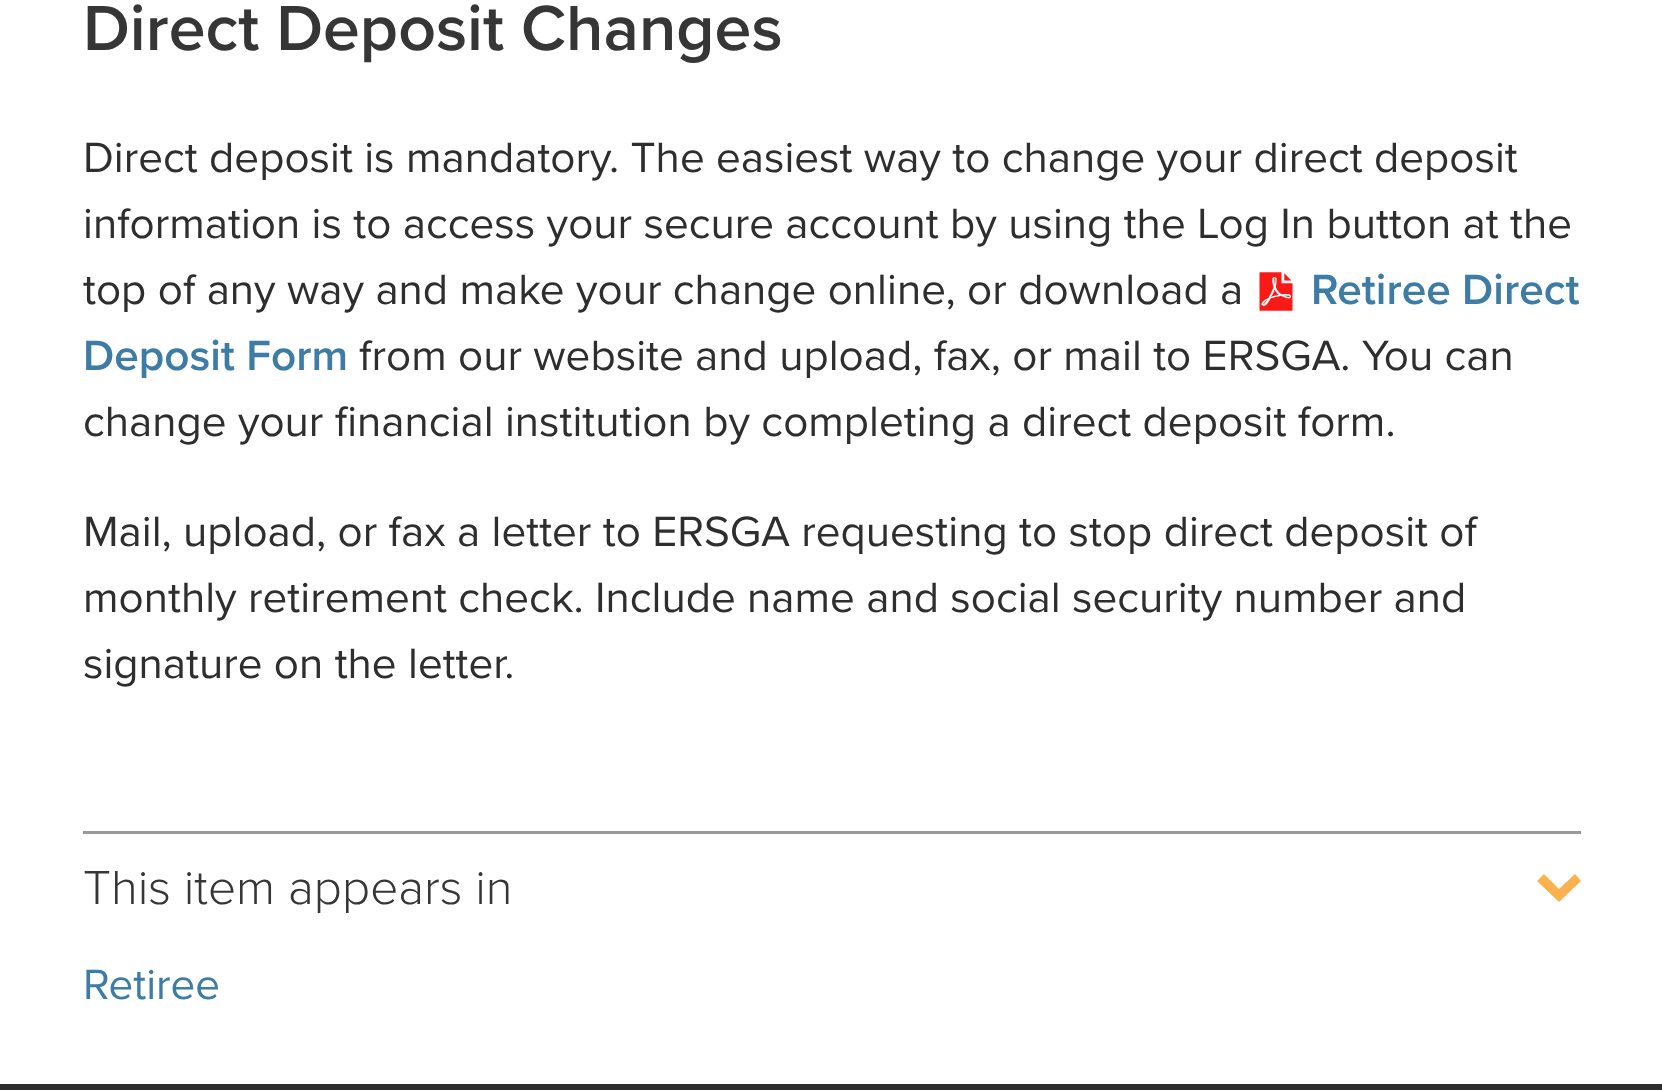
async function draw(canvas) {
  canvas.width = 1662
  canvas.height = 1090
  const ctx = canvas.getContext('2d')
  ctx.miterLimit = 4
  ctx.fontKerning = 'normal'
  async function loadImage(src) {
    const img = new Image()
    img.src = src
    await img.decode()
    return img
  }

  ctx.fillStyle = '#fff'
  ctx.fillRect(0, 0, 1662, 1090)
  ctx.font = '600 66px Proxima Nova'
  ctx.fillStyle = '#363636'
  ctx.fillText('Direct Deposit Changes', 83, 50)
  ctx.font = '44px Proxima Nova'
  ctx.fillStyle = '#2e2e2e'
  ctx.fillText('Direct deposit is mandatory. The easiest way to change your direct deposit', 83, 172)
  ctx.fillText('information is to access your secure account by using the Log In button at the', 83, 238)
  ctx.fillText('top of any way and make your change online, or download a', 83, 304)
  ctx.drawImage(await loadImage('image0.png'), 1259, 272, 34, 39)
  ctx.font = '600 44px Proxima Nova'
  ctx.fillStyle = '#3d7ca4'
  ctx.fillText('Retiree Direct', 1311, 304)
  ctx.fillText('Deposit Form', 83, 370)
  ctx.font = '44px Proxima Nova'
  ctx.fillStyle = '#2e2e2e'
  ctx.fillText('from our website and upload, fax, or mail to ERSGA. You can', 359, 370)
  ctx.fillText('change your financial institution by completing a direct deposit form.', 83, 436)
  ctx.fillText('Mail, upload, or fax a letter to ERSGA requesting to stop direct deposit of', 83, 546)
  ctx.fillText('monthly retirement check. Include name and social security number and', 83, 612)
  ctx.fillText('signature on the letter.', 83, 678)
  ctx.fillStyle = '#999'
  ctx.fillRect(83, 831, 1498, 3)
  ctx.font = '300 49.5px Proxima Nova'
  ctx.fillStyle = '#363636'
  ctx.fillText('This item appears in', 83, 904)
  ctx.fillStyle = '#fbb24e'
  ctx.beginPath()
  ctx.moveTo(1537, 881)
  ctx.lineTo(1544, 874)
  ctx.lineTo(1559, 889)
  ctx.lineTo(1575, 874)
  ctx.lineTo(1581, 881)
  ctx.lineTo(1559, 902)
  ctx.closePath()
  ctx.fill()
  ctx.font = '44px Proxima Nova'
  ctx.fillStyle = '#3d7ca4'
  ctx.fillText('Retiree', 83, 999)
  ctx.fillStyle = '#2e2e2e'
  ctx.fillRect(0, 1084, 1662, 6)
}

draw(document.querySelector('canvas'))
